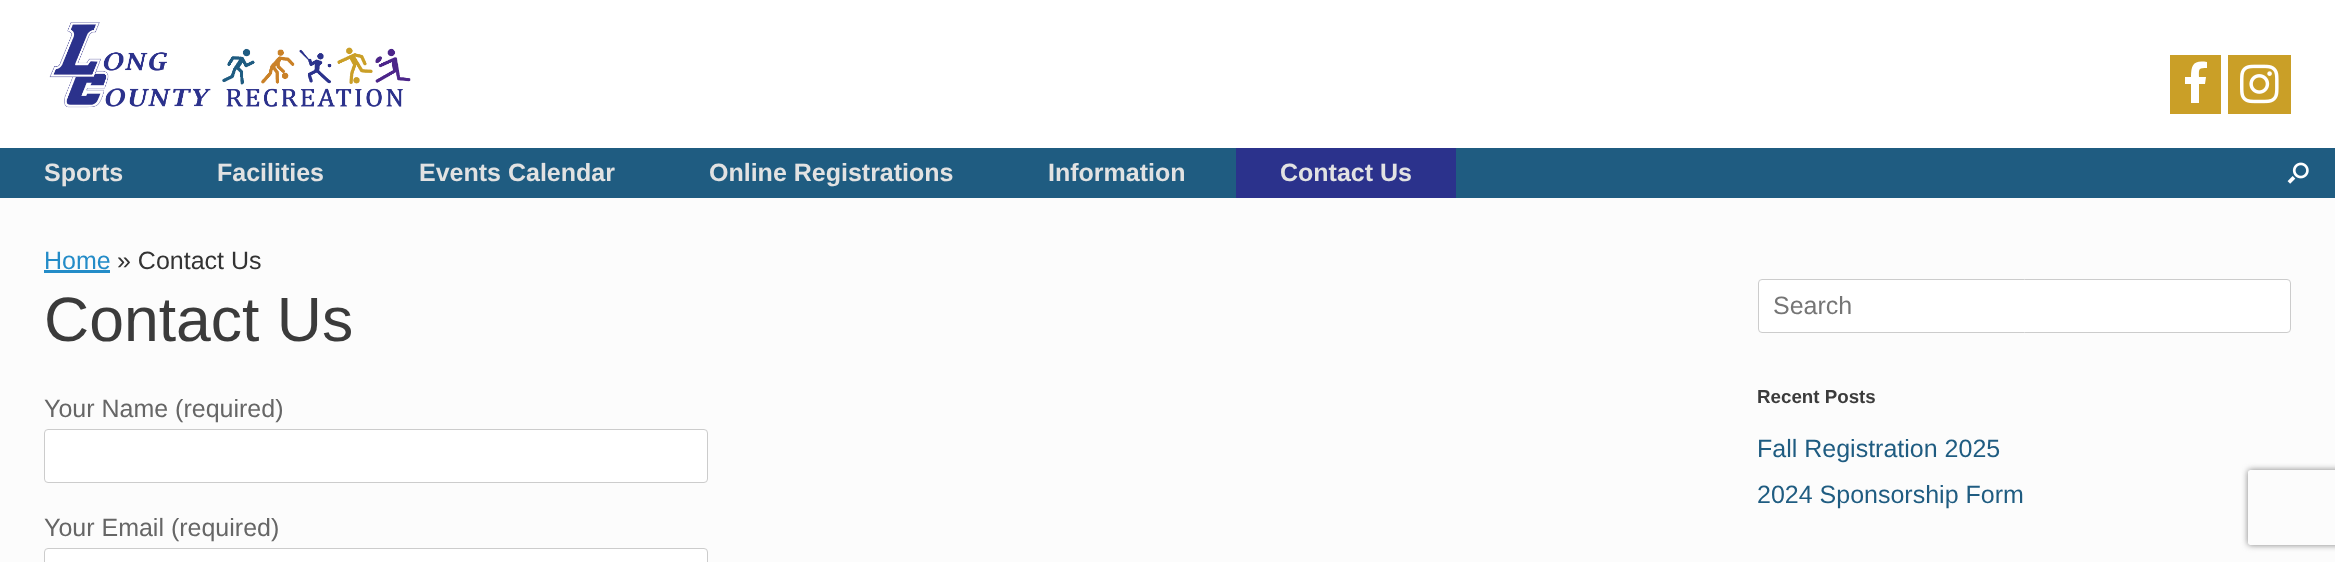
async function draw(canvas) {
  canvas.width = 2335
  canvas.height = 562
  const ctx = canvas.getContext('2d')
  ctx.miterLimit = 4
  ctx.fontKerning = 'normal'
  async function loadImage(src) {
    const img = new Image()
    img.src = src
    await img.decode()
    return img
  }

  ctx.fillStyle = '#fff'
  ctx.fillRect(0, 0, 2335, 562)
  ctx.drawImage(await loadImage('image0.png'), 49, 22, 362, 86)
  ctx.fillStyle = '#ca9f27'
  ctx.fillRect(2170, 55, 51, 59)
  ctx.fillStyle = '#fff'
  ctx.beginPath()
  ctx.moveTo(2207, 62)
  ctx.bezierCurveTo(2194, 60, 2191, 64, 2191, 77)
  ctx.lineTo(2185, 77)
  ctx.lineTo(2185, 84)
  ctx.lineTo(2191, 84)
  ctx.lineTo(2191, 103)
  ctx.lineTo(2199, 103)
  ctx.lineTo(2199, 84)
  ctx.lineTo(2205, 84)
  ctx.lineTo(2206, 77)
  ctx.lineTo(2199, 77)
  ctx.bezierCurveTo(2199, 69, 2198, 68, 2207, 68)
  ctx.closePath()
  ctx.fill()
  ctx.fillStyle = '#ca9f27'
  ctx.fillRect(2228, 55, 63, 59)
  ctx.drawImage(await loadImage('image1.png'), 2240, 64, 39, 40)
  ctx.fillStyle = '#1f5c81'
  ctx.fillRect(0, 148, 2335, 50)
  ctx.font = 'bold 25px Liberation Sans'
  ctx.fillStyle = '#e2e2e2'
  ctx.fillText('Sports', 44, 181)
  ctx.fillText('Facilities', 217, 181)
  ctx.fillText('Events Calendar', 419, 181)
  ctx.fillText('Online Registrations', 709, 181)
  ctx.fillText('Information', 1048, 181)
  ctx.fillStyle = '#2b328c'
  ctx.fillRect(1236, 148, 220, 50)
  ctx.fillStyle = '#e2e2e2'
  ctx.fillText('Contact Us', 1280, 181)
  ctx.drawImage(await loadImage('image2.png'), 2287, 162, 22, 22)
  ctx.fillStyle = '#fcfcfc'
  ctx.fillRect(0, 198, 2335, 364)
  ctx.font = '25px Liberation Sans'
  ctx.fillStyle = '#248cc8'
  ctx.fillText('Home', 44, 269)
  ctx.fillRect(44, 270, 66, 3)
  ctx.fillStyle = '#333'
  ctx.fillText('» Contact Us', 117, 269)
  ctx.font = '62.5px Liberation Sans'
  ctx.fillStyle = '#3b3b3b'
  ctx.fillText('Contact Us', 44, 341)
  ctx.font = '25px Liberation Sans'
  ctx.fillStyle = '#666'
  ctx.fillText('Your Name (required)', 44, 417)
  ctx.fillStyle = '#fff'
  ctx.beginPath()
  ctx.roundRect(44.5, 429.5, 663, 53, 3.5)
  ctx.fill()
  ctx.strokeStyle = '#ccc'
  ctx.stroke()
  ctx.fillStyle = '#666'
  ctx.fillText('Your Email (required)', 44, 536)
  ctx.fillStyle = '#fff'
  ctx.beginPath()
  ctx.roundRect(44.5, 548.5, 663, 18, 3.5)
  ctx.fill()
  ctx.stroke()
  ctx.beginPath()
  ctx.roundRect(1758.5, 279.5, 532, 53, 3.5)
  ctx.fill()
  ctx.stroke()
  ctx.fillStyle = '#757575'
  ctx.fillText('Search', 1773, 314)
  ctx.font = 'bold 18.75px Liberation Sans'
  ctx.fillStyle = '#3b3b3b'
  ctx.fillText('Recent Posts', 1757, 403)
  ctx.font = '25px Liberation Sans'
  ctx.fillStyle = '#1f5c81'
  ctx.fillText('Fall Registration 2025', 1757, 457)
  ctx.fillText('2024 Sponsorship Form', 1757, 503)
  ctx.save()
  ctx.beginPath()
  ctx.moveTo(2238, 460)
  ctx.lineTo(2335, 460)
  ctx.lineTo(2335, 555)
  ctx.lineTo(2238, 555)
  ctx.closePath()
  ctx.moveTo(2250.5, 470)
  ctx.lineTo(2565.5, 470)
  ctx.bezierCurveTo(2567, 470, 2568, 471, 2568, 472.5)
  ctx.lineTo(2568, 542.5)
  ctx.bezierCurveTo(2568, 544, 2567, 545, 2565.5, 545)
  ctx.lineTo(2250.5, 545)
  ctx.bezierCurveTo(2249, 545, 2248, 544, 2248, 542.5)
  ctx.lineTo(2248, 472.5)
  ctx.bezierCurveTo(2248, 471, 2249, 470, 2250.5, 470)
  ctx.closePath()
  ctx.clip('evenodd')
  ctx.fillStyle = '#808080'
  ctx.filter = 'blur(3px)'
  ctx.beginPath()
  ctx.roundRect(2248, 470, 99, 75, 2.5)
  ctx.fill()
  ctx.filter = 'none'
  ctx.restore()
}

draw(document.querySelector('canvas'))
